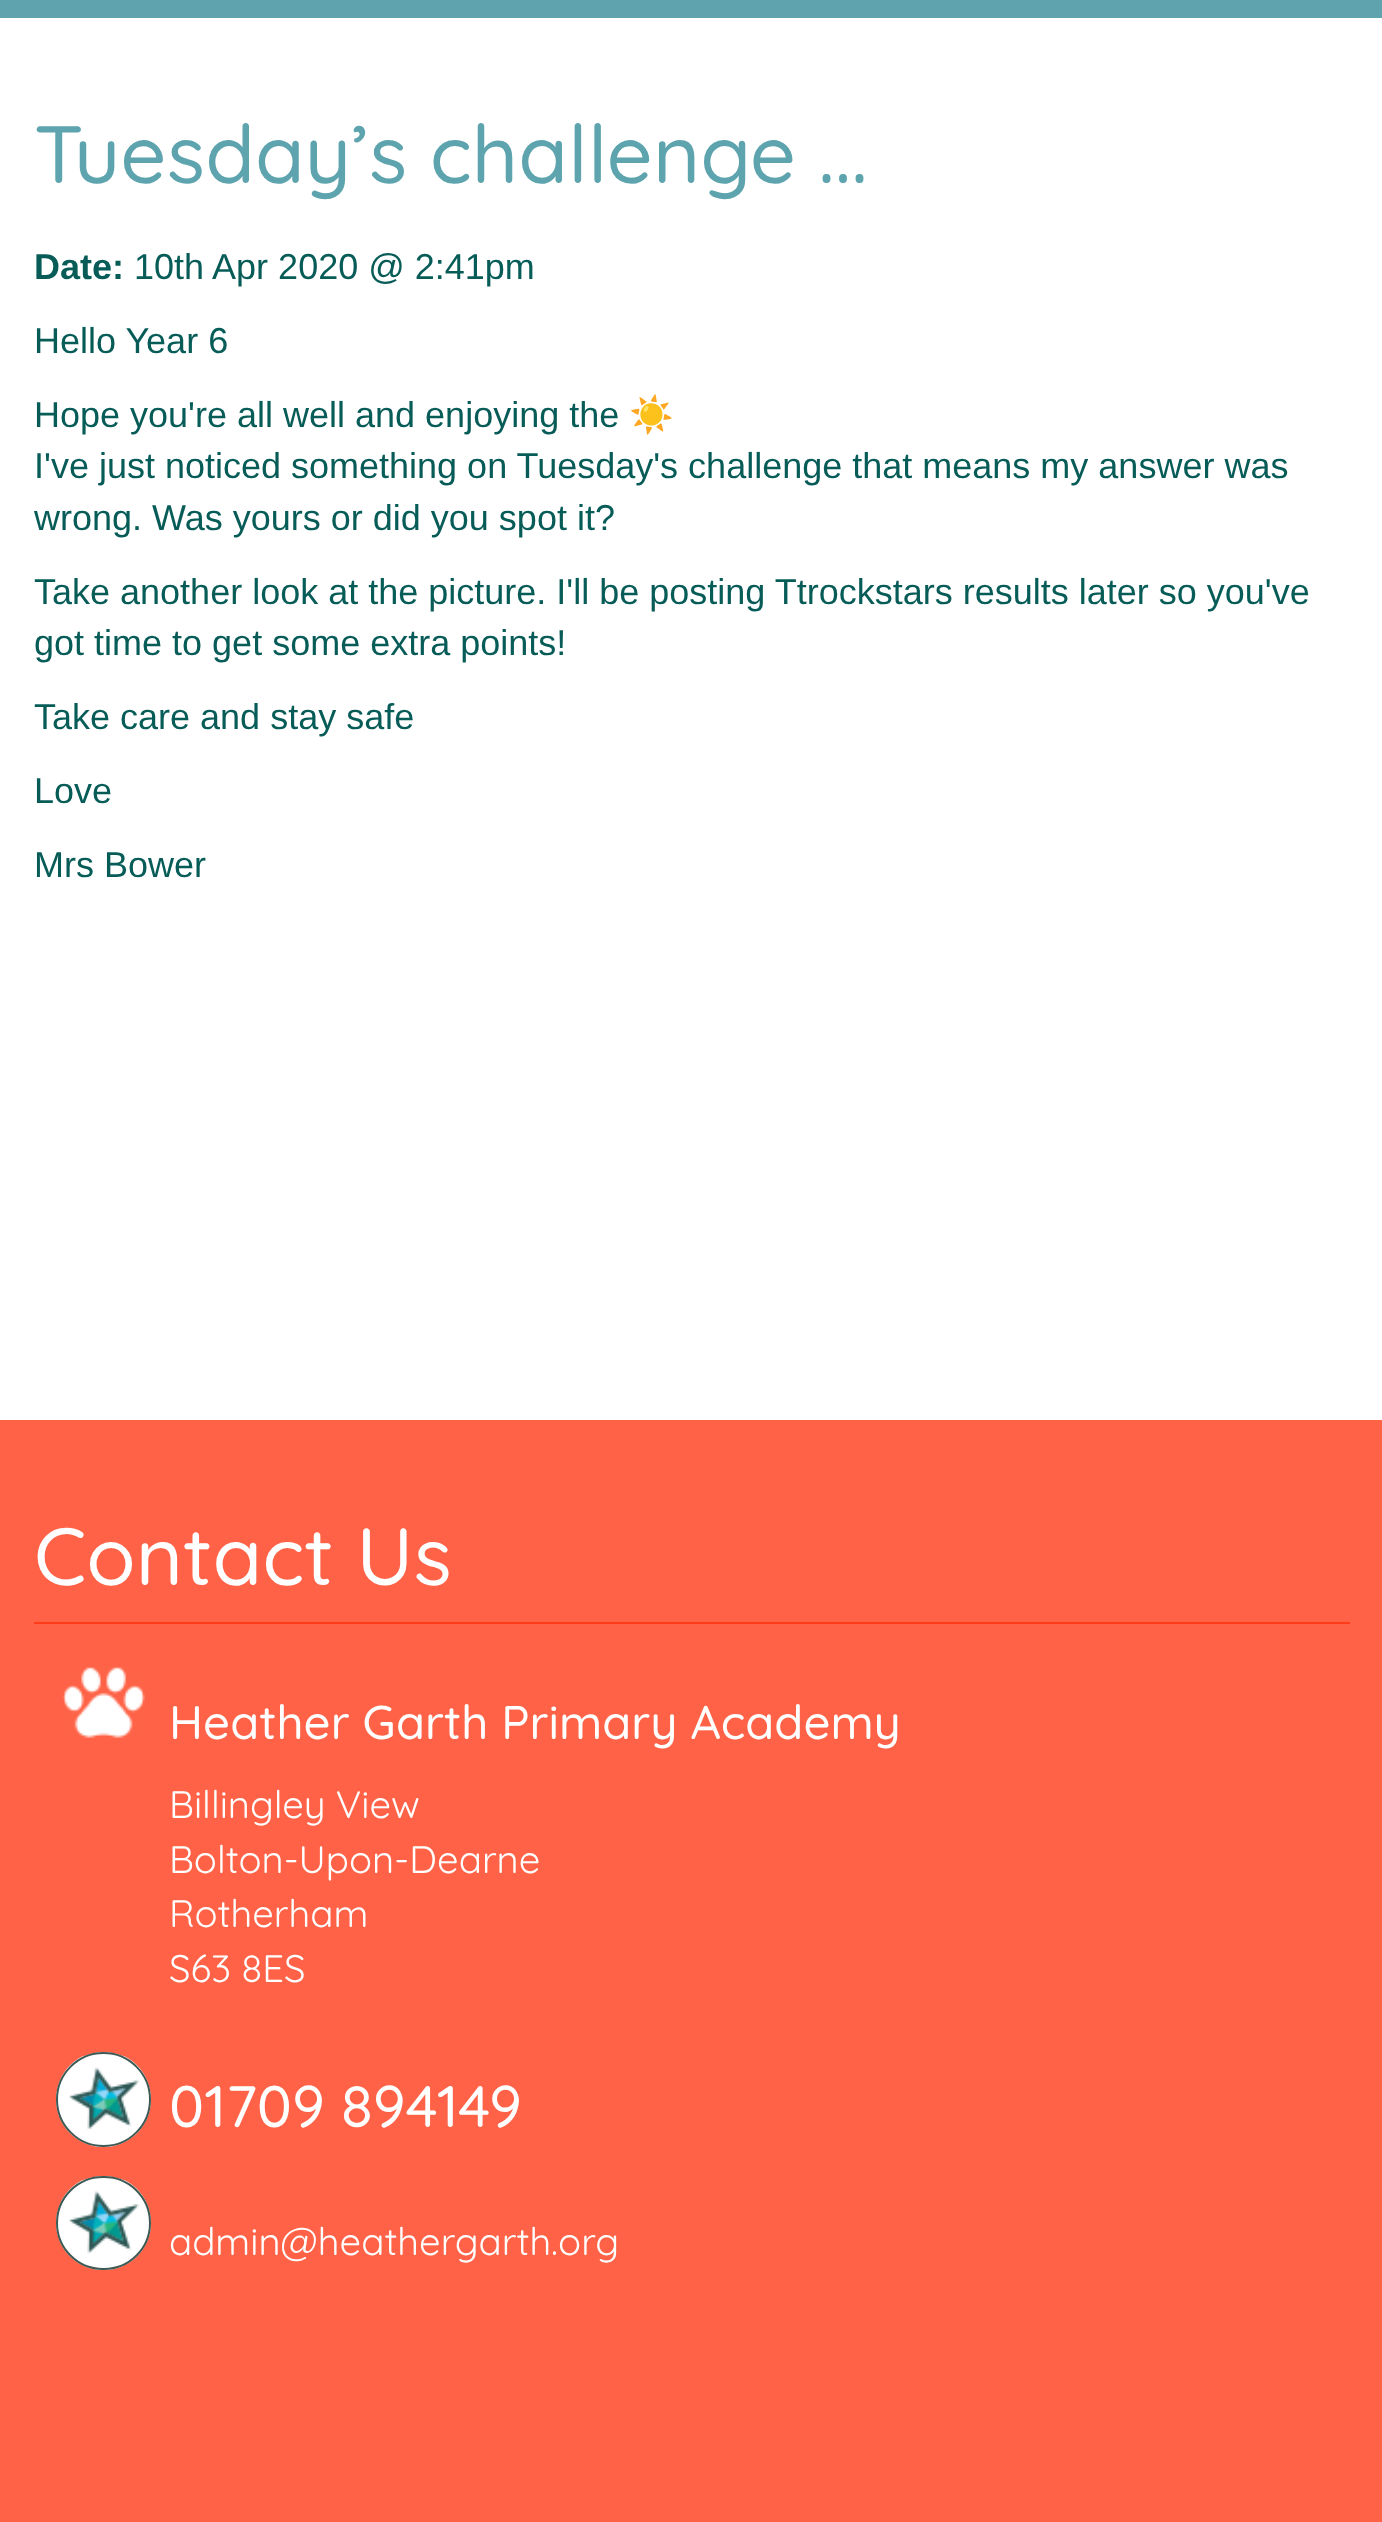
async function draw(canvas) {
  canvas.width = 1382
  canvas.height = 2522
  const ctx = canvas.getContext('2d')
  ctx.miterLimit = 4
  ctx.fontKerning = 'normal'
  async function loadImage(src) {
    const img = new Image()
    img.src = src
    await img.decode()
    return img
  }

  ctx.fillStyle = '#fff'
  ctx.fillRect(0, 0, 1382, 2522)
  ctx.fillStyle = '#5ea3ae'
  ctx.fillRect(0, 0, 1382, 18)
  ctx.font = '500 81px Quicksand'
  ctx.fillStyle = '#5ea4ae'
  ctx.fillText('Tuesday’s challenge ...', 34, 183)
  ctx.font = 'bold 36px Liberation Sans'
  ctx.fillStyle = '#075c58'
  ctx.fillText('Date:', 34, 279)
  ctx.font = '36px Liberation Sans'
  ctx.fillText('10th Apr 2020 @ 2:41pm', 134, 279)
  ctx.fillText('Hello Year 6', 34, 353)
  ctx.fillText('Hope you\'re all well and enjoying the', 34, 427)
  ctx.font = '36px Noto Color Emoji'
  ctx.fillText('☀️', 629, 427)
  ctx.font = '36px Liberation Sans'
  ctx.fillText('I\'ve just noticed something on Tuesday\'s challenge that means my answer was', 34, 478)
  ctx.fillText('wrong. Was yours or did you spot it?', 34, 530)
  ctx.fillText('Take another look at the picture. I\'ll be posting Ttrockstars results later so you\'ve', 34, 604)
  ctx.fillText('got time to get some extra points!', 34, 655)
  ctx.fillText('Take care and stay safe', 34, 729)
  ctx.fillText('Love', 34, 803)
  ctx.fillText('Mrs Bower', 34, 877)
  ctx.fillStyle = '#ff6246'
  ctx.fillRect(0, 1420, 1382, 1102)
  ctx.fillStyle = '#ff3c1a'
  ctx.fillRect(34, 1622, 1316, 2)
  ctx.font = '500 81px Quicksand'
  ctx.fillStyle = '#fff'
  ctx.fillText('Contact Us', 34, 1585)
  ctx.drawImage(await loadImage('image0.png'), 62, 1666, 83, 72)
  ctx.font = '500 47.25px Quicksand'
  ctx.fillText('Heather Garth Primary Academy', 169, 1739)
  ctx.font = '38.25px Quicksand'
  ctx.fillText('Billingley View', 169, 1818)
  ctx.fillText('Bolton-Upon-Dearne', 169, 1873)
  ctx.fillText('Rotherham', 169, 1927)
  ctx.fillText('S63 8ES', 169, 1982)
  ctx.beginPath()
  ctx.arc(103.5, 2099.5, 47.5, 0, 2 * Math.PI)
  ctx.fill()
  ctx.drawImage(await loadImage('image1.png'), 60, 2056, 87, 85)
  ctx.beginPath()
  ctx.arc(103.5, 2099.5, 46.5, 0, 2 * Math.PI)
  ctx.strokeStyle = '#3d5954'
  ctx.lineWidth = 2
  ctx.stroke()
  ctx.font = '500 58.5px Quicksand'
  ctx.fillText('01709 894149', 169, 2127)
  ctx.beginPath()
  ctx.roundRect(56, 2176, 95, 94, 47)
  ctx.fill()
  ctx.drawImage(await loadImage('image2.png'), 60, 2179, 87, 87)
  ctx.beginPath()
  ctx.roundRect(57, 2177, 93, 92, 46)
  ctx.stroke()
  ctx.font = '38.25px Quicksand'
  ctx.fillText('admin@heathergarth.org', 169, 2255)
}

draw(document.querySelector('canvas'))
